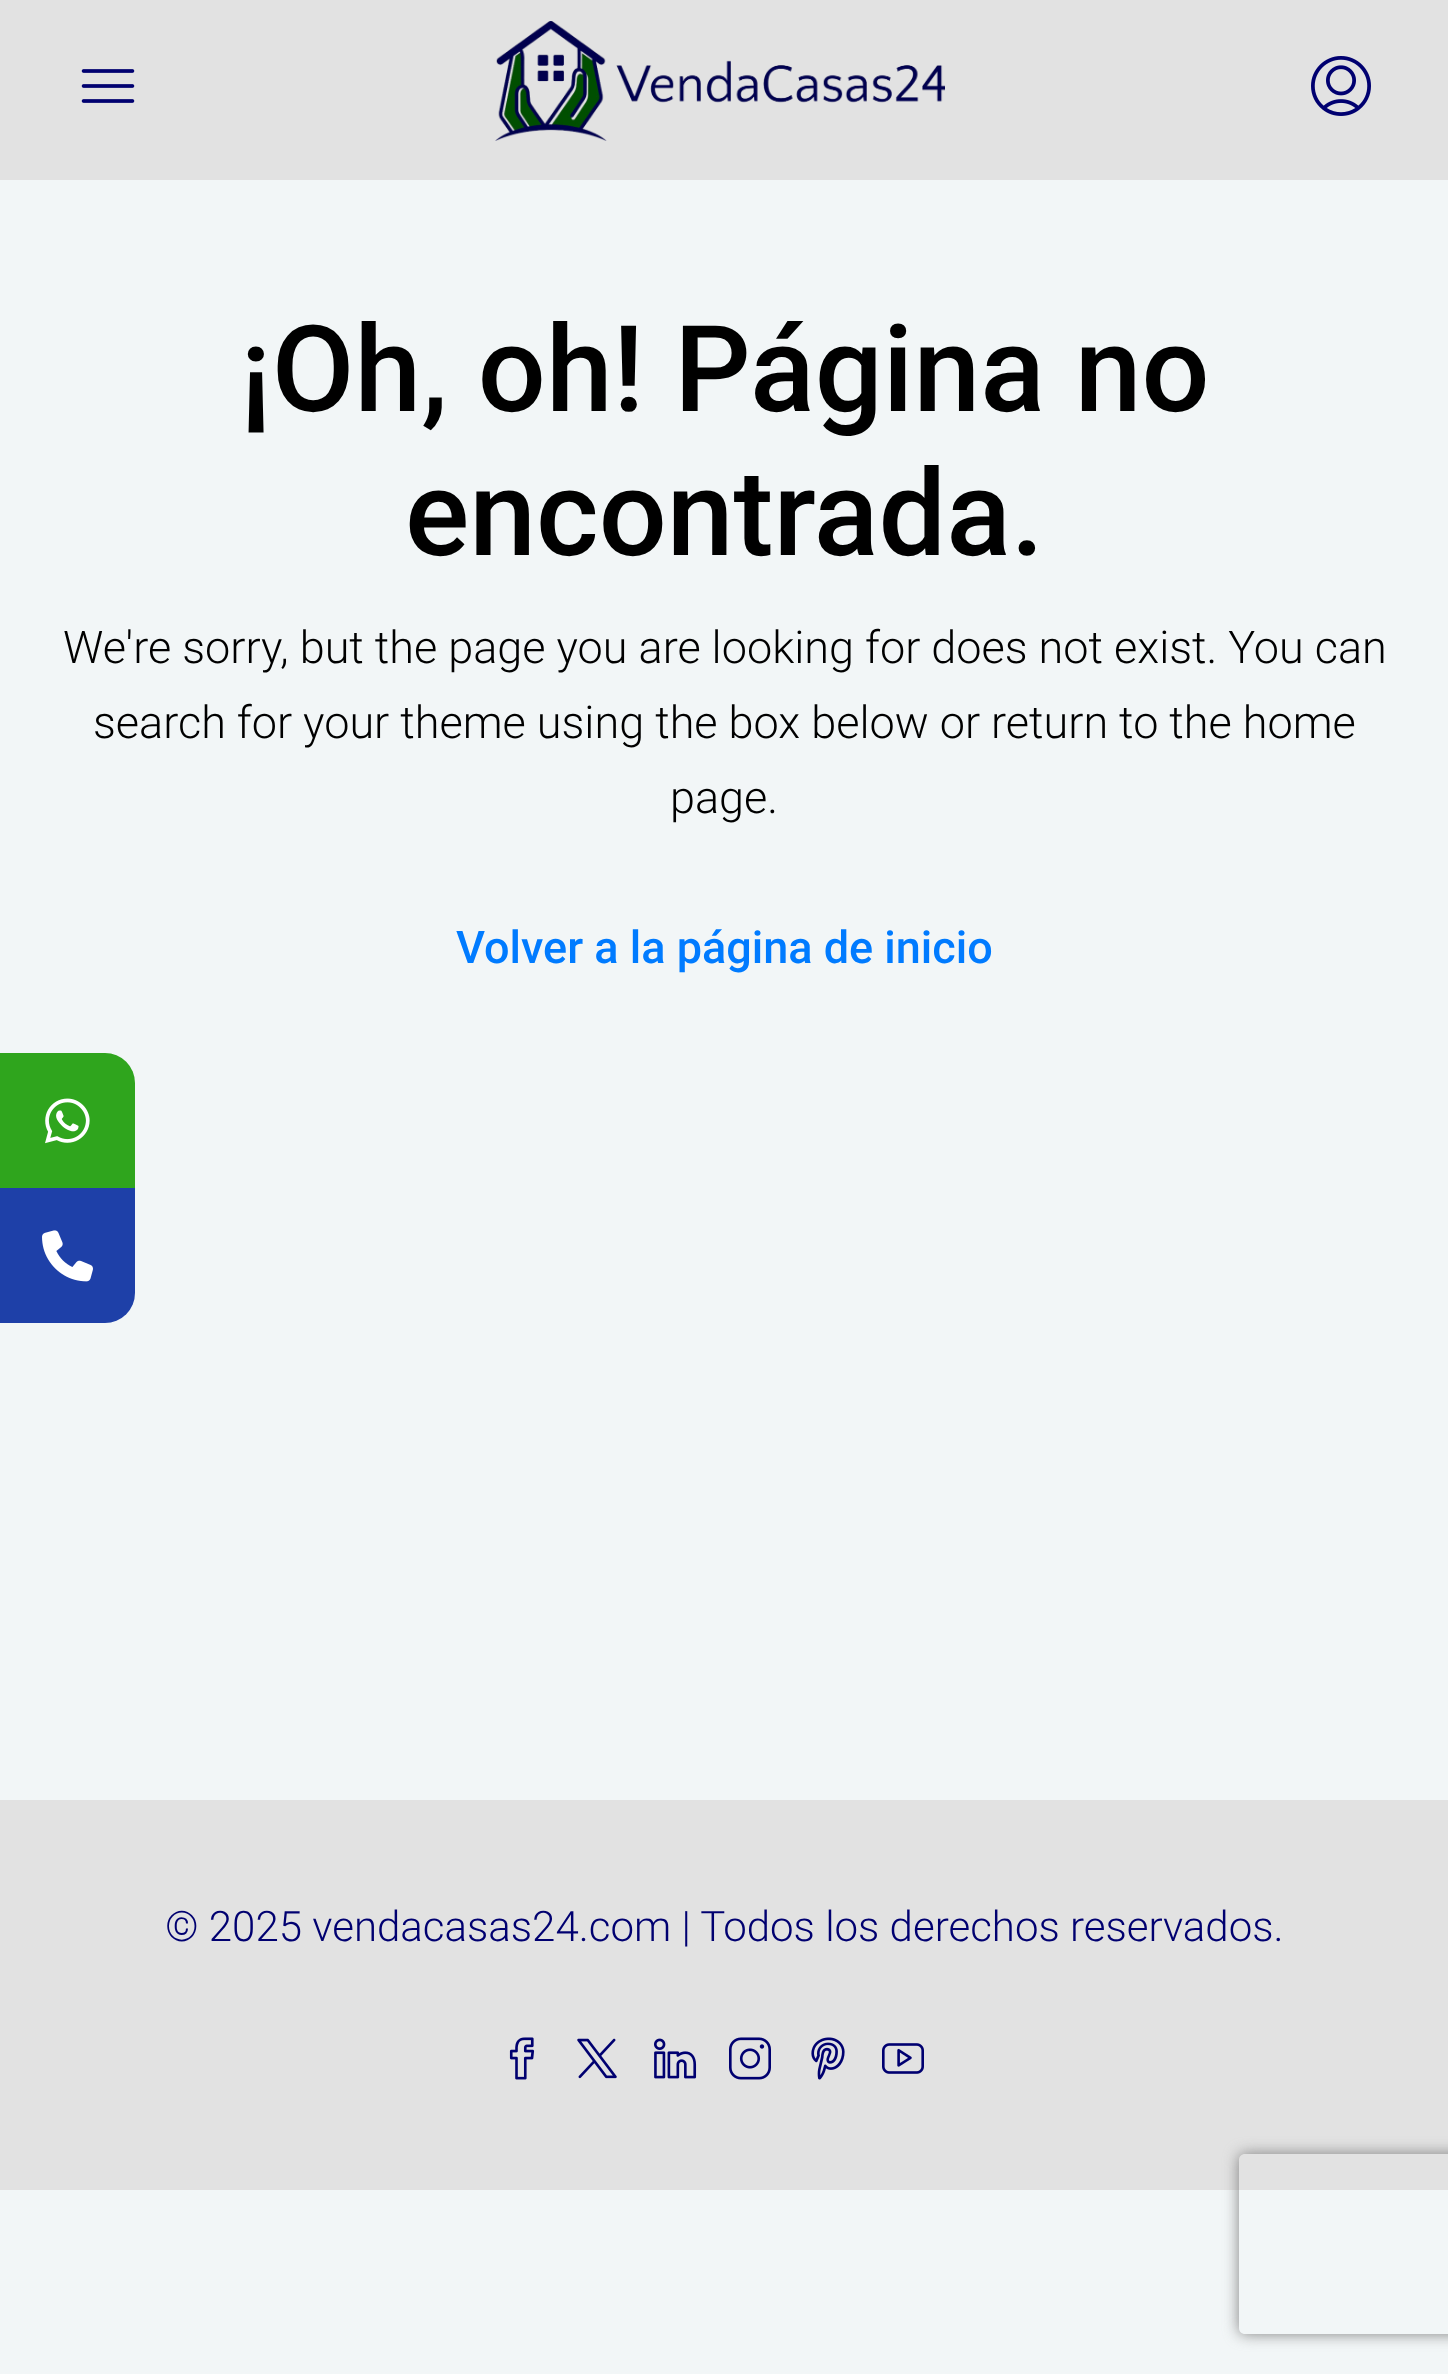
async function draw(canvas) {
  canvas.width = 1448
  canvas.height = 2374
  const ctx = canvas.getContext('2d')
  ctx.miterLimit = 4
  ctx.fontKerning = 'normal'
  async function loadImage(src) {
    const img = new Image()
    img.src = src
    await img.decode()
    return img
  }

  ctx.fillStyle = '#f2f6f7'
  ctx.fillRect(0, 0, 1448, 2374)
  ctx.fillStyle = '#e2e2e2'
  ctx.fillRect(0, 0, 1448, 180)
  ctx.drawImage(await loadImage('image0.png'), 81, 69, 54, 34)
  ctx.drawImage(await loadImage('image1.png'), 495, 21, 450, 120)
  ctx.drawImage(await loadImage('image2.png'), 1311, 56, 60, 60)
  ctx.font = '500 120px Roboto'
  ctx.fillStyle = '#000'
  ctx.fillText('¡Oh, oh! Página no', 240, 411)
  ctx.fillText('encontrada.', 405, 555)
  ctx.font = '300 45px Roboto'
  ctx.fillText('We\'re sorry, but the page you are looking for does not exist. You can', 63, 663)
  ctx.fillText('search for your theme using the box below or return to the home', 93, 738)
  ctx.fillText('page.', 670, 813)
  ctx.font = '500 45px Roboto'
  ctx.fillStyle = '#007bff'
  ctx.fillText('Volver a la página de inicio', 456, 963)
  ctx.fillStyle = '#2fa51d'
  ctx.beginPath()
  ctx.roundRect(0, 1053, 135, 135, [0, 30, 0, 0])
  ctx.fill()
  ctx.drawImage(await loadImage('image3.png'), 45, 1098, 45, 46)
  ctx.fillStyle = '#1e40a8'
  ctx.beginPath()
  ctx.roundRect(0, 1188, 135, 135, [0, 0, 30, 0])
  ctx.fill()
  ctx.drawImage(await loadImage('image4.png'), 42, 1230, 51, 52)
  ctx.fillStyle = '#e2e2e2'
  ctx.fillRect(0, 1800, 1448, 390)
  ctx.font = '300 42px Roboto'
  ctx.fillStyle = '#000070'
  ctx.fillText('© 2025 vendacasas24.com | Todos los derechos reservados.', 165, 1941)
  ctx.drawImage(await loadImage('image5.png'), 509, 2037, 26, 43)
  ctx.drawImage(await loadImage('image6.png'), 577, 2038, 40, 41)
  ctx.drawImage(await loadImage('image7.png'), 654, 2038, 43, 41)
  ctx.drawImage(await loadImage('image8.png'), 729, 2037, 42, 43)
  ctx.drawImage(await loadImage('image9.png'), 811, 2037, 34, 43)
  ctx.drawImage(await loadImage('image10.png'), 882, 2043, 42, 31)
  ctx.save()
  ctx.beginPath()
  ctx.moveTo(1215, 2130)
  ctx.lineTo(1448, 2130)
  ctx.lineTo(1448, 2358)
  ctx.lineTo(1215, 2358)
  ctx.closePath()
  ctx.moveTo(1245, 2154)
  ctx.lineTo(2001, 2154)
  ctx.bezierCurveTo(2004.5, 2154, 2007, 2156.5, 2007, 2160)
  ctx.lineTo(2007, 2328)
  ctx.bezierCurveTo(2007, 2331.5, 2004.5, 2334, 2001, 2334)
  ctx.lineTo(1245, 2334)
  ctx.bezierCurveTo(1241.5, 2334, 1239, 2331.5, 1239, 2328)
  ctx.lineTo(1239, 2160)
  ctx.bezierCurveTo(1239, 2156.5, 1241.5, 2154, 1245, 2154)
  ctx.closePath()
  ctx.clip('evenodd')
  ctx.fillStyle = '#808080'
  ctx.filter = 'blur(7.5px)'
  ctx.beginPath()
  ctx.roundRect(1239, 2154, 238, 180, 6)
  ctx.fill()
  ctx.filter = 'none'
  ctx.restore()
}

draw(document.querySelector('canvas'))
